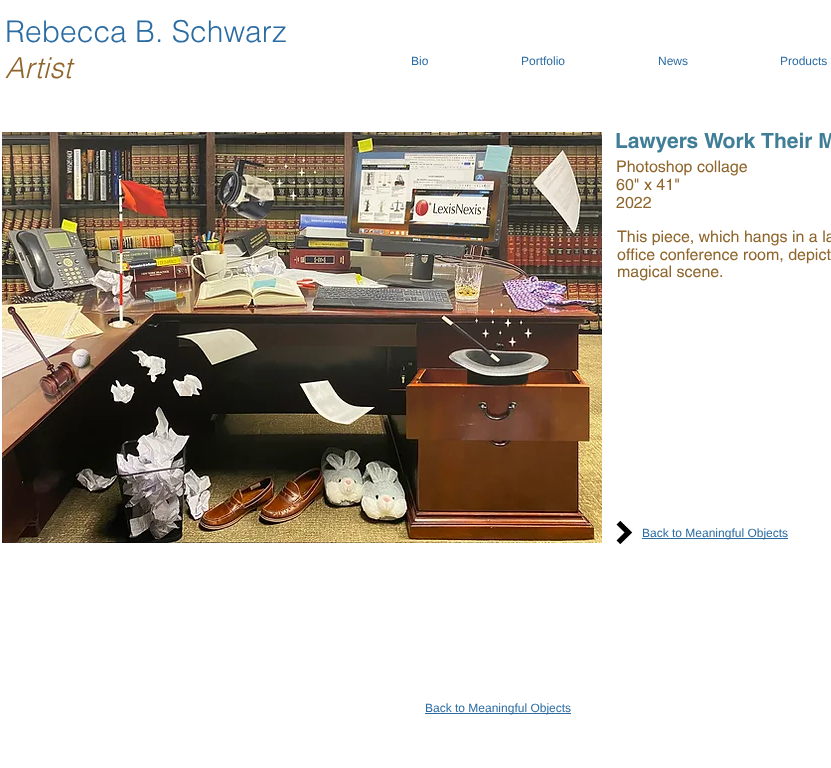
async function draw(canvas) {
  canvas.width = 831
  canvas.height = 768
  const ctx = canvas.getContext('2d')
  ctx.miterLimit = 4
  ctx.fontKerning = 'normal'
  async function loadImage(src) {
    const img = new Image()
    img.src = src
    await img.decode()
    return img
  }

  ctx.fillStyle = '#fff'
  ctx.fillRect(0, 0, 831, 768)
  ctx.font = '300 30px helvetica'
  ctx.fillStyle = '#2b6ca3'
  ctx.fillText('Rebecca B. Schwarz', 5, 42)
  ctx.font = 'italic 300 29px helvetica'
  ctx.fillStyle = '#8f652b'
  ctx.fillText('Artist', 5, 78)
  ctx.font = '12px Liberation Sans'
  ctx.fillStyle = '#2b6ca3'
  ctx.fillText('Bio', 411, 65)
  ctx.fillText('Portfolio', 521, 65)
  ctx.fillText('News', 658, 65)
  ctx.fillText('Products', 780, 65)
  ctx.drawImage(await loadImage('image0.png'), 2, 132, 600, 411)
  ctx.font = 'bold 21px helvetica'
  ctx.fillStyle = '#3f7e96'
  ctx.fillText('Lawyers Work Their M', 615, 148)
  ctx.font = '16px helvetica'
  ctx.fillStyle = '#8f652b'
  ctx.fillText('Photoshop collage', 616, 172)
  ctx.fillText('60" x 41"', 616, 190)
  ctx.fillText('2022', 616, 208)
  ctx.fillText('This piece, which hangs in a la', 617, 242)
  ctx.fillText('office conference room, depict', 617, 260)
  ctx.fillText('magical scene.', 617, 277)
  ctx.drawImage(await loadImage('image1.png'), 616, 520, 17, 25)
  ctx.fillStyle = '#2b6ca3'
  ctx.fillRect(642, 538, 146, 1)
  ctx.font = '12px Liberation Sans'
  ctx.fillText('Back to Meaningful Objects', 642, 537)
  ctx.fillRect(425, 713, 146, 1)
  ctx.fillText('Back to Meaningful Objects', 425, 712)
}

draw(document.querySelector('canvas'))
